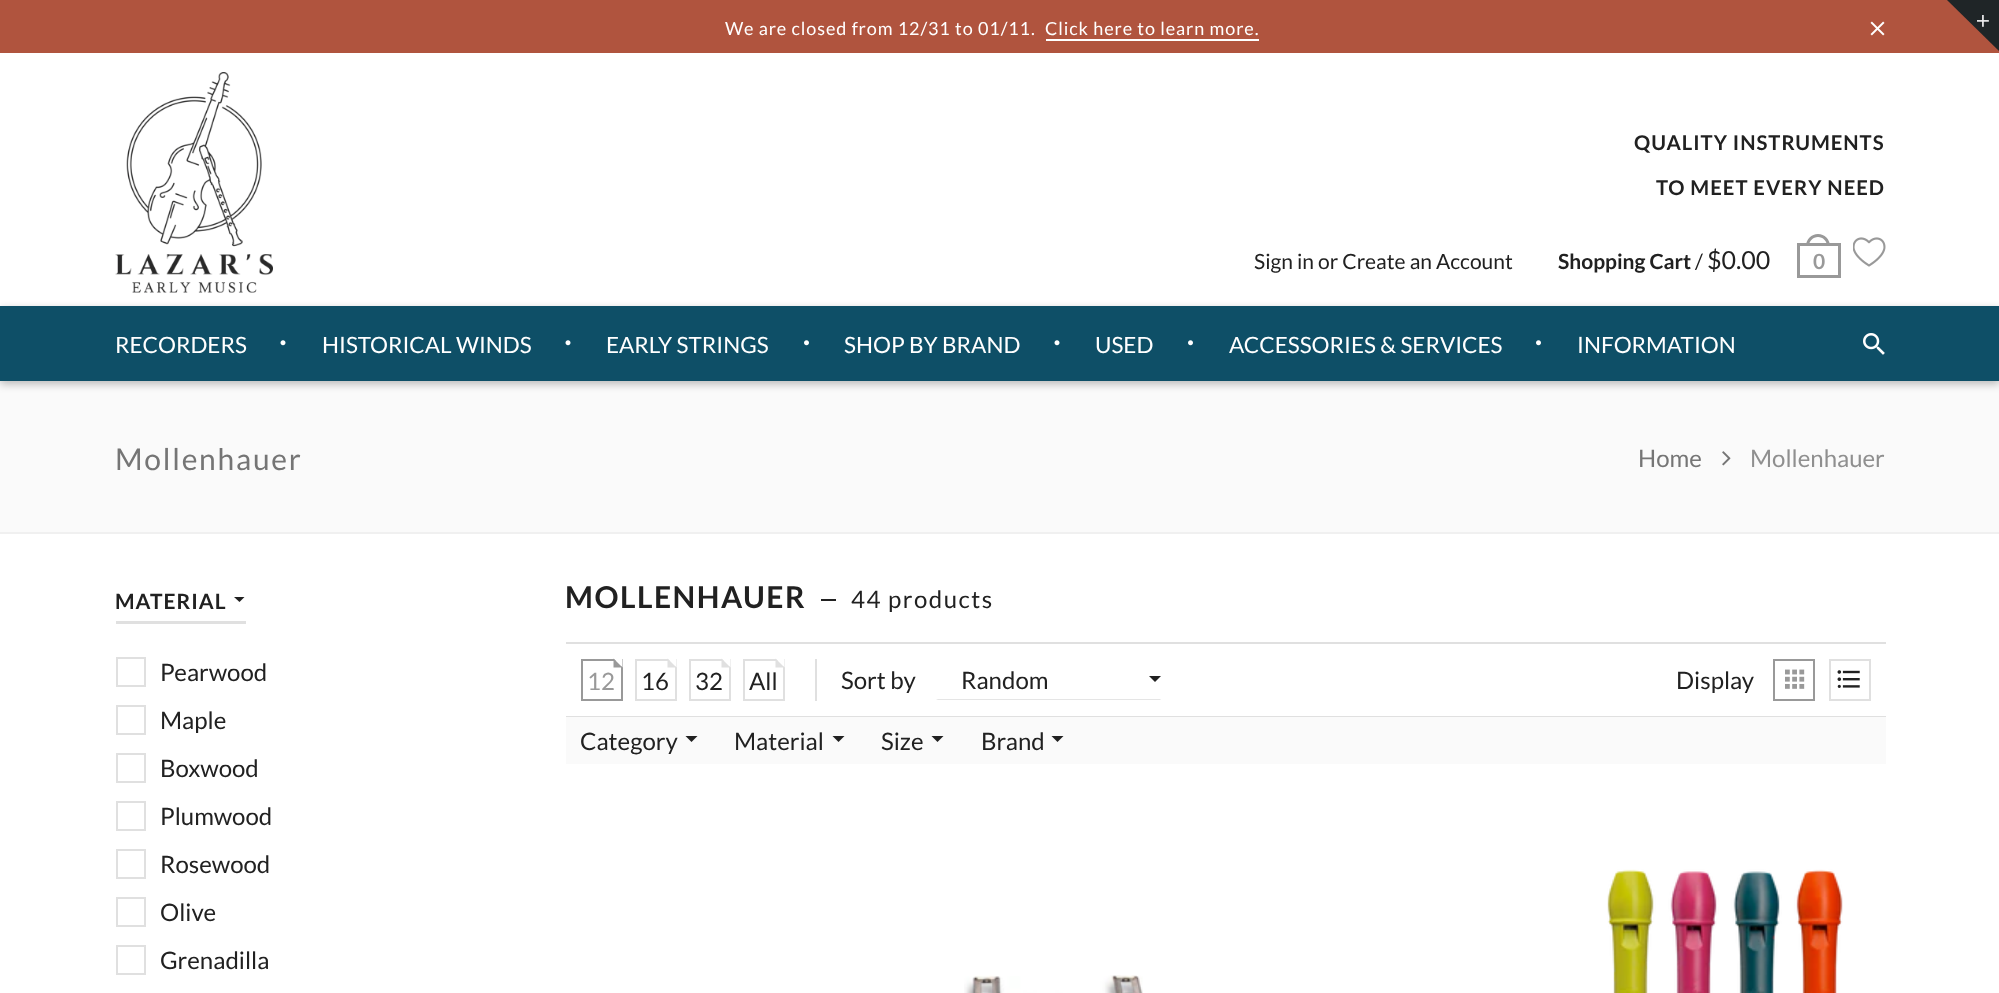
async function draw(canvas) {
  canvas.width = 1999
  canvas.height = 993
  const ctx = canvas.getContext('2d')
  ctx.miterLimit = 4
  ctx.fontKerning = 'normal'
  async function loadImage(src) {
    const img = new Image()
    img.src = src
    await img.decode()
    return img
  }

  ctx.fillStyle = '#fff'
  ctx.fillRect(0, 0, 1999, 993)
  ctx.fillStyle = '#b0543e'
  ctx.fillRect(0, 0, 1999, 53)
  ctx.letterSpacing = '0.9px'
  ctx.font = '18px Lato'
  ctx.fillStyle = '#fff'
  ctx.fillText('We are closed from 12/31 to 01/11.', 725, 35)
  ctx.fillText('Click here to learn more.', 1045, 35)
  ctx.fillRect(1046, 39, 213, 2)
  ctx.drawImage(await loadImage('image0.png'), 1870, 21, 15, 15)
  ctx.letterSpacing = '1px'
  ctx.font = 'bold 20.25px Lato'
  ctx.fillStyle = '#212121'
  ctx.fillText('QUALITY INSTRUMENTS', 1634, 150)
  ctx.fillText('TO MEET EVERY NEED', 1656, 195)
  ctx.drawImage(await loadImage('image1.png'), 115, 72, 158, 221)
  ctx.letterSpacing = '0px'
  ctx.font = '21px Lato'
  ctx.fillText('Sign in or Create an Account', 1254, 269)
  ctx.font = 'bold 21px Lato'
  ctx.fillText('Shopping Cart', 1558, 269)
  ctx.font = '21px Lato'
  ctx.fillText('/', 1695, 269)
  ctx.font = '25px Lato'
  ctx.fillText('$0.00', 1707, 269)
  ctx.fillStyle = '#999'
  ctx.beginPath()
  ctx.moveTo(1818, 234)
  ctx.bezierCurveTo(1824.5, 234, 1830, 239.5, 1830, 246)
  ctx.lineTo(1806, 246)
  ctx.bezierCurveTo(1806, 239.5, 1811.5, 234, 1818, 234)
  ctx.closePath()
  ctx.moveTo(1818, 237)
  ctx.bezierCurveTo(1823, 237, 1827, 241, 1827, 246)
  ctx.lineTo(1809, 246)
  ctx.bezierCurveTo(1809, 241, 1813, 237, 1818, 237)
  ctx.closePath()
  ctx.fill('evenodd')
  ctx.strokeStyle = '#999'
  ctx.lineWidth = 3
  ctx.strokeRect(1798.5, 244.5, 41, 32)
  ctx.font = 'bold 21px Lato'
  ctx.fillText('0', 1813, 269)
  ctx.drawImage(await loadImage('image2.png'), 1853, 237, 33, 30)
  ctx.fillStyle = '#fafafa'
  ctx.fillRect(0, 381, 1999, 151)
  ctx.fillStyle = '#00000042'
  ctx.filter = 'blur(4px)'
  ctx.beginPath()
  ctx.rect(0, 309, 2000, 75)
  ctx.fill()
  ctx.filter = 'none'
  ctx.fillStyle = '#0e4f67'
  ctx.fillRect(0, 306, 1999, 75)
  ctx.font = '22.5px Lato'
  ctx.fillStyle = '#fff'
  ctx.fillText('RECORDERS', 115, 353)
  ctx.drawImage(await loadImage('image3.png'), 280, 340, 6, 6)
  ctx.fillText('HISTORICAL WINDS', 322, 353)
  ctx.drawImage(await loadImage('image3.png'), 565, 340, 6, 6)
  ctx.fillText('EARLY STRINGS', 606, 353)
  ctx.drawImage(await loadImage('image4.png'), 804, 340, 5, 6)
  ctx.fillText('SHOP BY BRAND', 844, 353)
  ctx.drawImage(await loadImage('image3.png'), 1054, 340, 6, 6)
  ctx.fillText('USED', 1095, 353)
  ctx.drawImage(await loadImage('image4.png'), 1188, 340, 5, 6)
  ctx.fillText('ACCESSORIES & SERVICES', 1229, 353)
  ctx.drawImage(await loadImage('image4.png'), 1536, 340, 5, 6)
  ctx.fillText('INFORMATION', 1577, 353)
  ctx.drawImage(await loadImage('image5.png'), 1863, 333, 22, 22)
  ctx.fillStyle = '#1f2527'
  ctx.beginPath()
  ctx.moveTo(1947, 0)
  ctx.lineTo(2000, 0)
  ctx.lineTo(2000, 52)
  ctx.closePath()
  ctx.fill()
  ctx.drawImage(await loadImage('image6.png'), 1977, 15, 12, 12)
  ctx.save()
  ctx.beginPath()
  ctx.rect(0, 381, 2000, 153)
  ctx.clip()
  ctx.fillStyle = '#f0f0f0'
  ctx.beginPath()
  ctx.moveTo(-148, 232)
  ctx.lineTo(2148, 232)
  ctx.lineTo(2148, 682)
  ctx.lineTo(-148, 682)
  ctx.closePath()
  ctx.moveTo(0, 376)
  ctx.lineTo(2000, 376)
  ctx.bezierCurveTo(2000, 376, 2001, 377, 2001, 378)
  ctx.lineTo(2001, 531)
  ctx.bezierCurveTo(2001, 532, 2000, 532, 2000, 532)
  ctx.lineTo(0, 532)
  ctx.bezierCurveTo(-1, 532, -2, 532, -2, 531)
  ctx.lineTo(-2, 378)
  ctx.bezierCurveTo(-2, 377, -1, 376, 0, 376)
  ctx.closePath()
  ctx.fill('evenodd')
  ctx.restore()
  ctx.letterSpacing = '1.75px'
  ctx.font = '30px Lato'
  ctx.fillStyle = '#757575'
  ctx.fillText('Mollenhauer', 115, 470)
  ctx.letterSpacing = '0px'
  ctx.font = '24px Lato'
  ctx.fillText('Home', 1638, 467)
  ctx.drawImage(await loadImage('image7.png'), 1722, 451, 9, 15)
  ctx.fillStyle = '#8f8f8f'
  ctx.fillText('Mollenhauer', 1750, 467)
  ctx.letterSpacing = '1px'
  ctx.font = 'bold 21px Lato'
  ctx.fillStyle = '#212121'
  ctx.fillText('MATERIAL', 115, 609)
  ctx.beginPath()
  ctx.moveTo(234, 597)
  ctx.lineTo(244.5, 597)
  ctx.lineTo(239.5, 602)
  ctx.closePath()
  ctx.fill()
  ctx.fillStyle = '#e0e0e0'
  ctx.fillRect(116, 621, 130, 3)
  ctx.strokeStyle = '#e0e0e0'
  ctx.lineWidth = 2
  ctx.strokeRect(117, 658, 28, 28)
  ctx.letterSpacing = '0px'
  ctx.font = '24px Lato'
  ctx.fillStyle = '#212121'
  ctx.fillText('Pearwood', 160, 681)
  ctx.strokeRect(117, 706, 28, 28)
  ctx.fillText('Maple', 160, 729)
  ctx.strokeRect(117, 754, 28, 28)
  ctx.fillText('Boxwood', 160, 777)
  ctx.strokeRect(117, 802, 28, 28)
  ctx.fillText('Plumwood', 160, 825)
  ctx.strokeRect(117, 850, 28, 28)
  ctx.fillText('Rosewood', 160, 873)
  ctx.strokeRect(117, 898, 28, 28)
  ctx.fillText('Olive', 160, 921)
  ctx.strokeRect(117, 946, 28, 28)
  ctx.fillText('Grenadilla', 160, 969)
  ctx.letterSpacing = '1.5px'
  ctx.font = 'bold 30px Lato'
  ctx.fillText('MOLLENHAUER', 565, 608)
  ctx.fillRect(821, 599, 15, 2)
  ctx.font = '24px Lato'
  ctx.fillText('44 products', 851, 608)
  ctx.fillStyle = '#e0e0e0'
  ctx.fillRect(566, 642, 1320, 2)
  ctx.fillRect(566, 716, 1320, 1)
  ctx.strokeStyle = '#999'
  ctx.strokeRect(582, 660, 40, 40)
  ctx.fillStyle = '#fff'
  ctx.beginPath()
  ctx.moveTo(622.5, 658.5)
  ctx.lineTo(622.5, 667.5)
  ctx.lineTo(613.5, 658.5)
  ctx.closePath()
  ctx.fill()
  ctx.fillStyle = '#999'
  ctx.beginPath()
  ctx.moveTo(613.5, 667.5)
  ctx.lineTo(613.5, 658.5)
  ctx.lineTo(622.5, 667.5)
  ctx.closePath()
  ctx.fill()
  ctx.letterSpacing = '0px'
  ctx.fillText('12', 587, 690)
  ctx.strokeStyle = '#e0e0e0'
  ctx.strokeRect(636, 660, 40, 40)
  ctx.fillStyle = '#fff'
  ctx.beginPath()
  ctx.moveTo(676.5, 658.5)
  ctx.lineTo(676.5, 667.5)
  ctx.lineTo(667.5, 658.5)
  ctx.closePath()
  ctx.fill()
  ctx.fillStyle = '#e0e0e0'
  ctx.beginPath()
  ctx.moveTo(667.5, 667.5)
  ctx.lineTo(667.5, 658.5)
  ctx.lineTo(676.5, 667.5)
  ctx.closePath()
  ctx.fill()
  ctx.fillStyle = '#212121'
  ctx.fillText('16', 641, 690)
  ctx.strokeRect(690, 660, 40, 40)
  ctx.fillStyle = '#fff'
  ctx.beginPath()
  ctx.moveTo(730.5, 658.5)
  ctx.lineTo(730.5, 667.5)
  ctx.lineTo(721.5, 658.5)
  ctx.closePath()
  ctx.fill()
  ctx.fillStyle = '#e0e0e0'
  ctx.beginPath()
  ctx.moveTo(721.5, 667.5)
  ctx.lineTo(721.5, 658.5)
  ctx.lineTo(730.5, 667.5)
  ctx.closePath()
  ctx.fill()
  ctx.fillStyle = '#212121'
  ctx.fillText('32', 695, 690)
  ctx.strokeRect(744, 660, 40, 40)
  ctx.fillStyle = '#fff'
  ctx.beginPath()
  ctx.moveTo(784.5, 658.5)
  ctx.lineTo(784.5, 667.5)
  ctx.lineTo(775.5, 658.5)
  ctx.closePath()
  ctx.fill()
  ctx.fillStyle = '#e0e0e0'
  ctx.beginPath()
  ctx.moveTo(775.5, 667.5)
  ctx.lineTo(775.5, 658.5)
  ctx.lineTo(784.5, 667.5)
  ctx.closePath()
  ctx.fill()
  ctx.fillStyle = '#212121'
  ctx.fillText('All', 749, 690)
  ctx.fillStyle = '#e0e0e0'
  ctx.fillRect(815, 659, 2, 42)
  ctx.fillStyle = '#212121'
  ctx.fillText('Sort by', 841, 689)
  ctx.fillStyle = '#e5e5e5'
  ctx.beginPath()
  ctx.moveTo(1161, 700)
  ctx.lineTo(936, 700)
  ctx.lineTo(938, 699)
  ctx.lineTo(1160, 699)
  ctx.closePath()
  ctx.fill()
  ctx.fillStyle = '#212121'
  ctx.fillText('Random', 961, 689)
  ctx.beginPath()
  ctx.moveTo(1149, 676)
  ctx.lineTo(1161, 676)
  ctx.lineTo(1155, 682)
  ctx.closePath()
  ctx.fill()
  ctx.fillText('Display', 1676, 689)
  ctx.strokeStyle = '#999'
  ctx.strokeRect(1774, 660, 40, 40)
  ctx.drawImage(await loadImage('image8.png'), 1785, 669, 20, 20)
  ctx.strokeStyle = '#e0e0e0'
  ctx.strokeRect(1830, 660, 40, 40)
  ctx.drawImage(await loadImage('image9.png'), 1837, 670, 23, 18)
  ctx.fillStyle = '#fafafa'
  ctx.fillRect(566, 717, 1320, 47)
  ctx.fillStyle = '#212121'
  ctx.fillText('Category', 580, 750)
  ctx.beginPath()
  ctx.moveTo(685.5, 736)
  ctx.lineTo(697.5, 736)
  ctx.lineTo(691.5, 742)
  ctx.closePath()
  ctx.fill()
  ctx.fillText('Material', 734, 750)
  ctx.beginPath()
  ctx.moveTo(832.5, 736)
  ctx.lineTo(844.5, 736)
  ctx.lineTo(838.5, 742)
  ctx.closePath()
  ctx.fill()
  ctx.fillText('Size', 881, 750)
  ctx.beginPath()
  ctx.moveTo(931.5, 736)
  ctx.lineTo(943.5, 736)
  ctx.lineTo(937.5, 742)
  ctx.closePath()
  ctx.fill()
  ctx.fillText('Brand', 981, 750)
  ctx.beginPath()
  ctx.moveTo(1051.5, 736)
  ctx.lineTo(1063.5, 736)
  ctx.lineTo(1057.5, 742)
  ctx.closePath()
  ctx.fill()
  ctx.drawImage(await loadImage('image10.png'), 964, 975, 179, 18)
  ctx.drawImage(await loadImage('image11.png'), 1607, 869, 236, 124)
}

draw(document.querySelector('canvas'))
